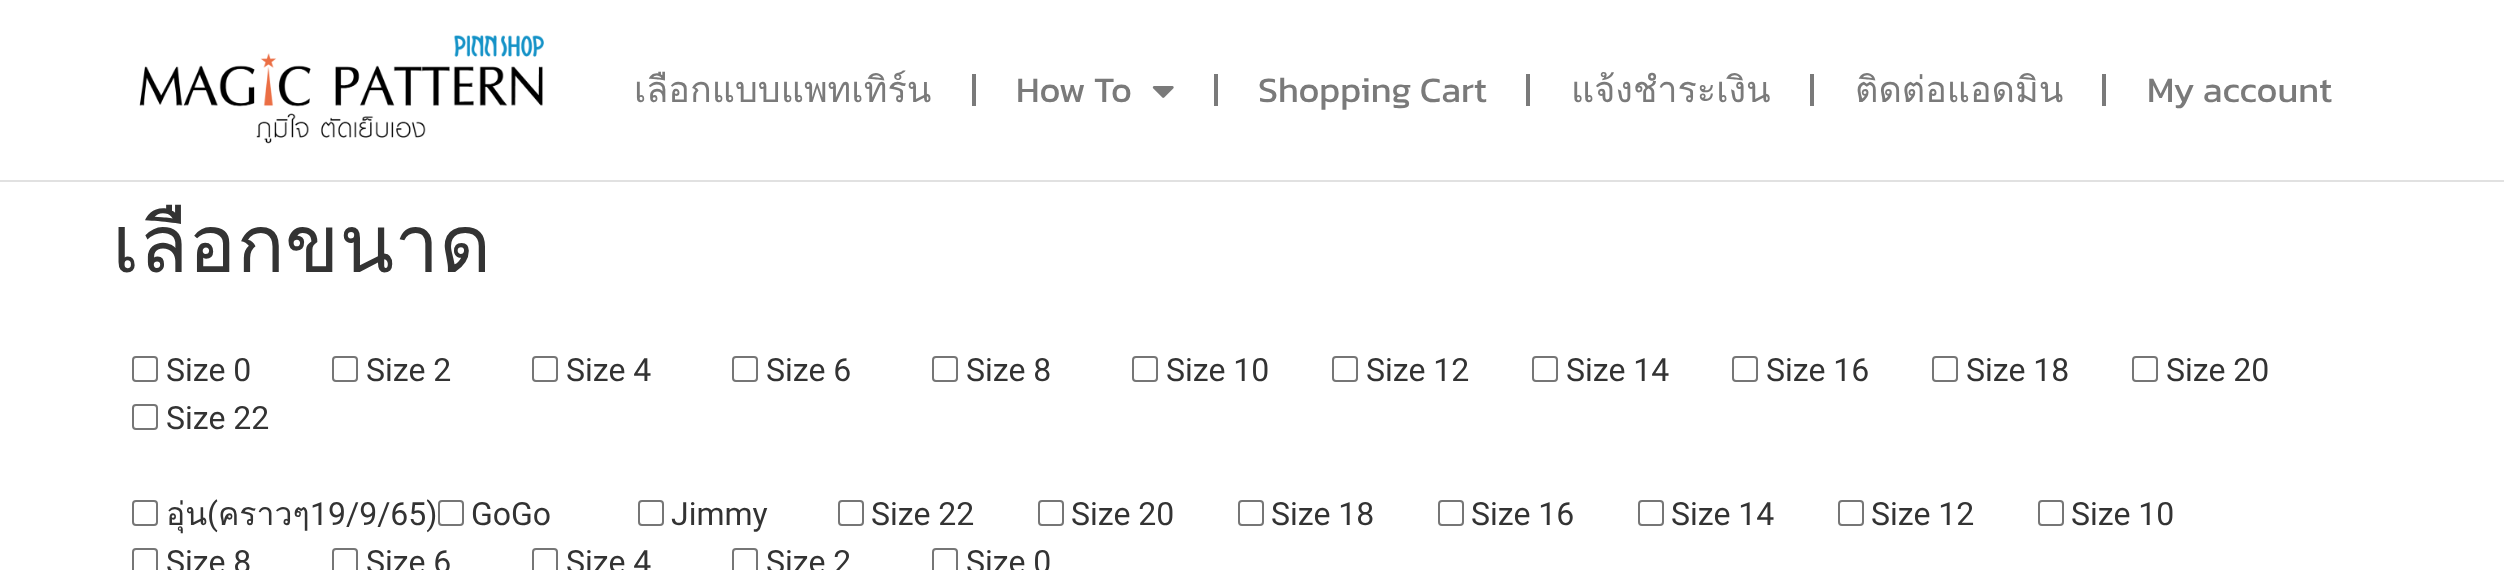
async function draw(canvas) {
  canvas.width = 2504
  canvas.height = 570
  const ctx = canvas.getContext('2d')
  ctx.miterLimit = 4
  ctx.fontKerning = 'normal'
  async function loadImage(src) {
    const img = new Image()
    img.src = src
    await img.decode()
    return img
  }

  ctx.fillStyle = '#fff'
  ctx.fillRect(0, 0, 2504, 570)
  ctx.fillStyle = '#e1e1e1'
  ctx.fillRect(0, 180, 2504, 2)
  ctx.drawImage(await loadImage('image0.png'), 139, 35, 405, 109)
  ctx.font = '36px Loma'
  ctx.fillStyle = '#7a7a7a'
  ctx.fillText('เลือกแบบแพทเทิร์น', 634, 102)
  ctx.fillRect(972, 74, 4, 32)
  ctx.font = '36px Kanit'
  ctx.fillText('How To', 1016, 102)
  ctx.drawImage(await loadImage('image1.png'), 1152, 86, 22, 12)
  ctx.fillRect(1214, 74, 4, 32)
  ctx.fillText('Shopping Cart', 1258, 102)
  ctx.fillRect(1526, 74, 4, 32)
  ctx.font = '36px Loma'
  ctx.fillText('แจ้งชำระเงิน', 1571, 102)
  ctx.fillRect(1810, 74, 4, 32)
  ctx.fillText('ติดต่อแอดมิน', 1855, 102)
  ctx.fillRect(2102, 74, 4, 32)
  ctx.font = '36px Kanit'
  ctx.fillText('My account', 2147, 102)
  ctx.font = '80px Loma'
  ctx.fillStyle = '#333'
  ctx.fillText('เลือกขนาด', 112, 272)
  ctx.beginPath()
  ctx.roundRect(133, 357, 24, 24, 3)
  ctx.strokeStyle = '#767676'
  ctx.lineWidth = 2
  ctx.stroke()
  ctx.font = '32px Roboto'
  ctx.fillText('Size 0', 166, 381)
  ctx.beginPath()
  ctx.roundRect(333, 357, 24, 24, 3)
  ctx.stroke()
  ctx.fillText('Size 2', 366, 381)
  ctx.beginPath()
  ctx.roundRect(533, 357, 24, 24, 3)
  ctx.stroke()
  ctx.fillText('Size 4', 566, 381)
  ctx.beginPath()
  ctx.roundRect(733, 357, 24, 24, 3)
  ctx.stroke()
  ctx.fillText('Size 6', 766, 381)
  ctx.beginPath()
  ctx.roundRect(933, 357, 24, 24, 3)
  ctx.stroke()
  ctx.fillText('Size 8', 966, 381)
  ctx.beginPath()
  ctx.roundRect(1133, 357, 24, 24, 3)
  ctx.stroke()
  ctx.fillText('Size 10', 1166, 381)
  ctx.beginPath()
  ctx.roundRect(1333, 357, 24, 24, 3)
  ctx.stroke()
  ctx.fillText('Size 12', 1366, 381)
  ctx.beginPath()
  ctx.roundRect(1533, 357, 24, 24, 3)
  ctx.stroke()
  ctx.fillText('Size 14', 1566, 381)
  ctx.beginPath()
  ctx.roundRect(1733, 357, 24, 24, 3)
  ctx.stroke()
  ctx.fillText('Size 16', 1766, 381)
  ctx.beginPath()
  ctx.roundRect(1933, 357, 24, 24, 3)
  ctx.stroke()
  ctx.fillText('Size 18', 1966, 381)
  ctx.beginPath()
  ctx.roundRect(2133, 357, 24, 24, 3)
  ctx.stroke()
  ctx.fillText('Size 20', 2166, 381)
  ctx.beginPath()
  ctx.roundRect(133, 405, 24, 24, 3)
  ctx.stroke()
  ctx.fillText('Size 22', 166, 429)
  ctx.beginPath()
  ctx.roundRect(133, 501, 24, 24, 3)
  ctx.stroke()
  ctx.font = '32px Loma'
  ctx.fillText('อุ่น คราวๆ', 166, 525)
  ctx.font = '32px Roboto'
  ctx.fillText('(', 207, 525)
  ctx.fillText('19/9/65)', 310, 525)
  ctx.beginPath()
  ctx.roundRect(439, 501, 24, 24, 3)
  ctx.stroke()
  ctx.fillText('GoGo', 471, 525)
  ctx.beginPath()
  ctx.roundRect(639, 501, 24, 24, 3)
  ctx.stroke()
  ctx.fillText('Jimmy', 671, 525)
  ctx.beginPath()
  ctx.roundRect(839, 501, 24, 24, 3)
  ctx.stroke()
  ctx.fillText('Size 22', 871, 525)
  ctx.beginPath()
  ctx.roundRect(1039, 501, 24, 24, 3)
  ctx.stroke()
  ctx.fillText('Size 20', 1071, 525)
  ctx.beginPath()
  ctx.roundRect(1239, 501, 24, 24, 3)
  ctx.stroke()
  ctx.fillText('Size 18', 1271, 525)
  ctx.beginPath()
  ctx.roundRect(1439, 501, 24, 24, 3)
  ctx.stroke()
  ctx.fillText('Size 16', 1471, 525)
  ctx.beginPath()
  ctx.roundRect(1639, 501, 24, 24, 3)
  ctx.stroke()
  ctx.fillText('Size 14', 1671, 525)
  ctx.beginPath()
  ctx.roundRect(1839, 501, 24, 24, 3)
  ctx.stroke()
  ctx.fillText('Size 12', 1871, 525)
  ctx.beginPath()
  ctx.roundRect(2039, 501, 24, 24, 3)
  ctx.stroke()
  ctx.fillText('Size 10', 2071, 525)
  ctx.beginPath()
  ctx.roundRect(133, 549, 24, 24, 3)
  ctx.stroke()
  ctx.fillText('Size 8', 166, 573)
  ctx.beginPath()
  ctx.roundRect(333, 549, 24, 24, 3)
  ctx.stroke()
  ctx.fillText('Size 6', 366, 573)
  ctx.beginPath()
  ctx.roundRect(533, 549, 24, 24, 3)
  ctx.stroke()
  ctx.fillText('Size 4', 566, 573)
  ctx.beginPath()
  ctx.roundRect(733, 549, 24, 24, 3)
  ctx.stroke()
  ctx.fillText('Size 2', 766, 573)
  ctx.beginPath()
  ctx.roundRect(933, 549, 24, 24, 3)
  ctx.stroke()
  ctx.fillText('Size 0', 966, 573)
}

draw(document.querySelector('canvas'))
